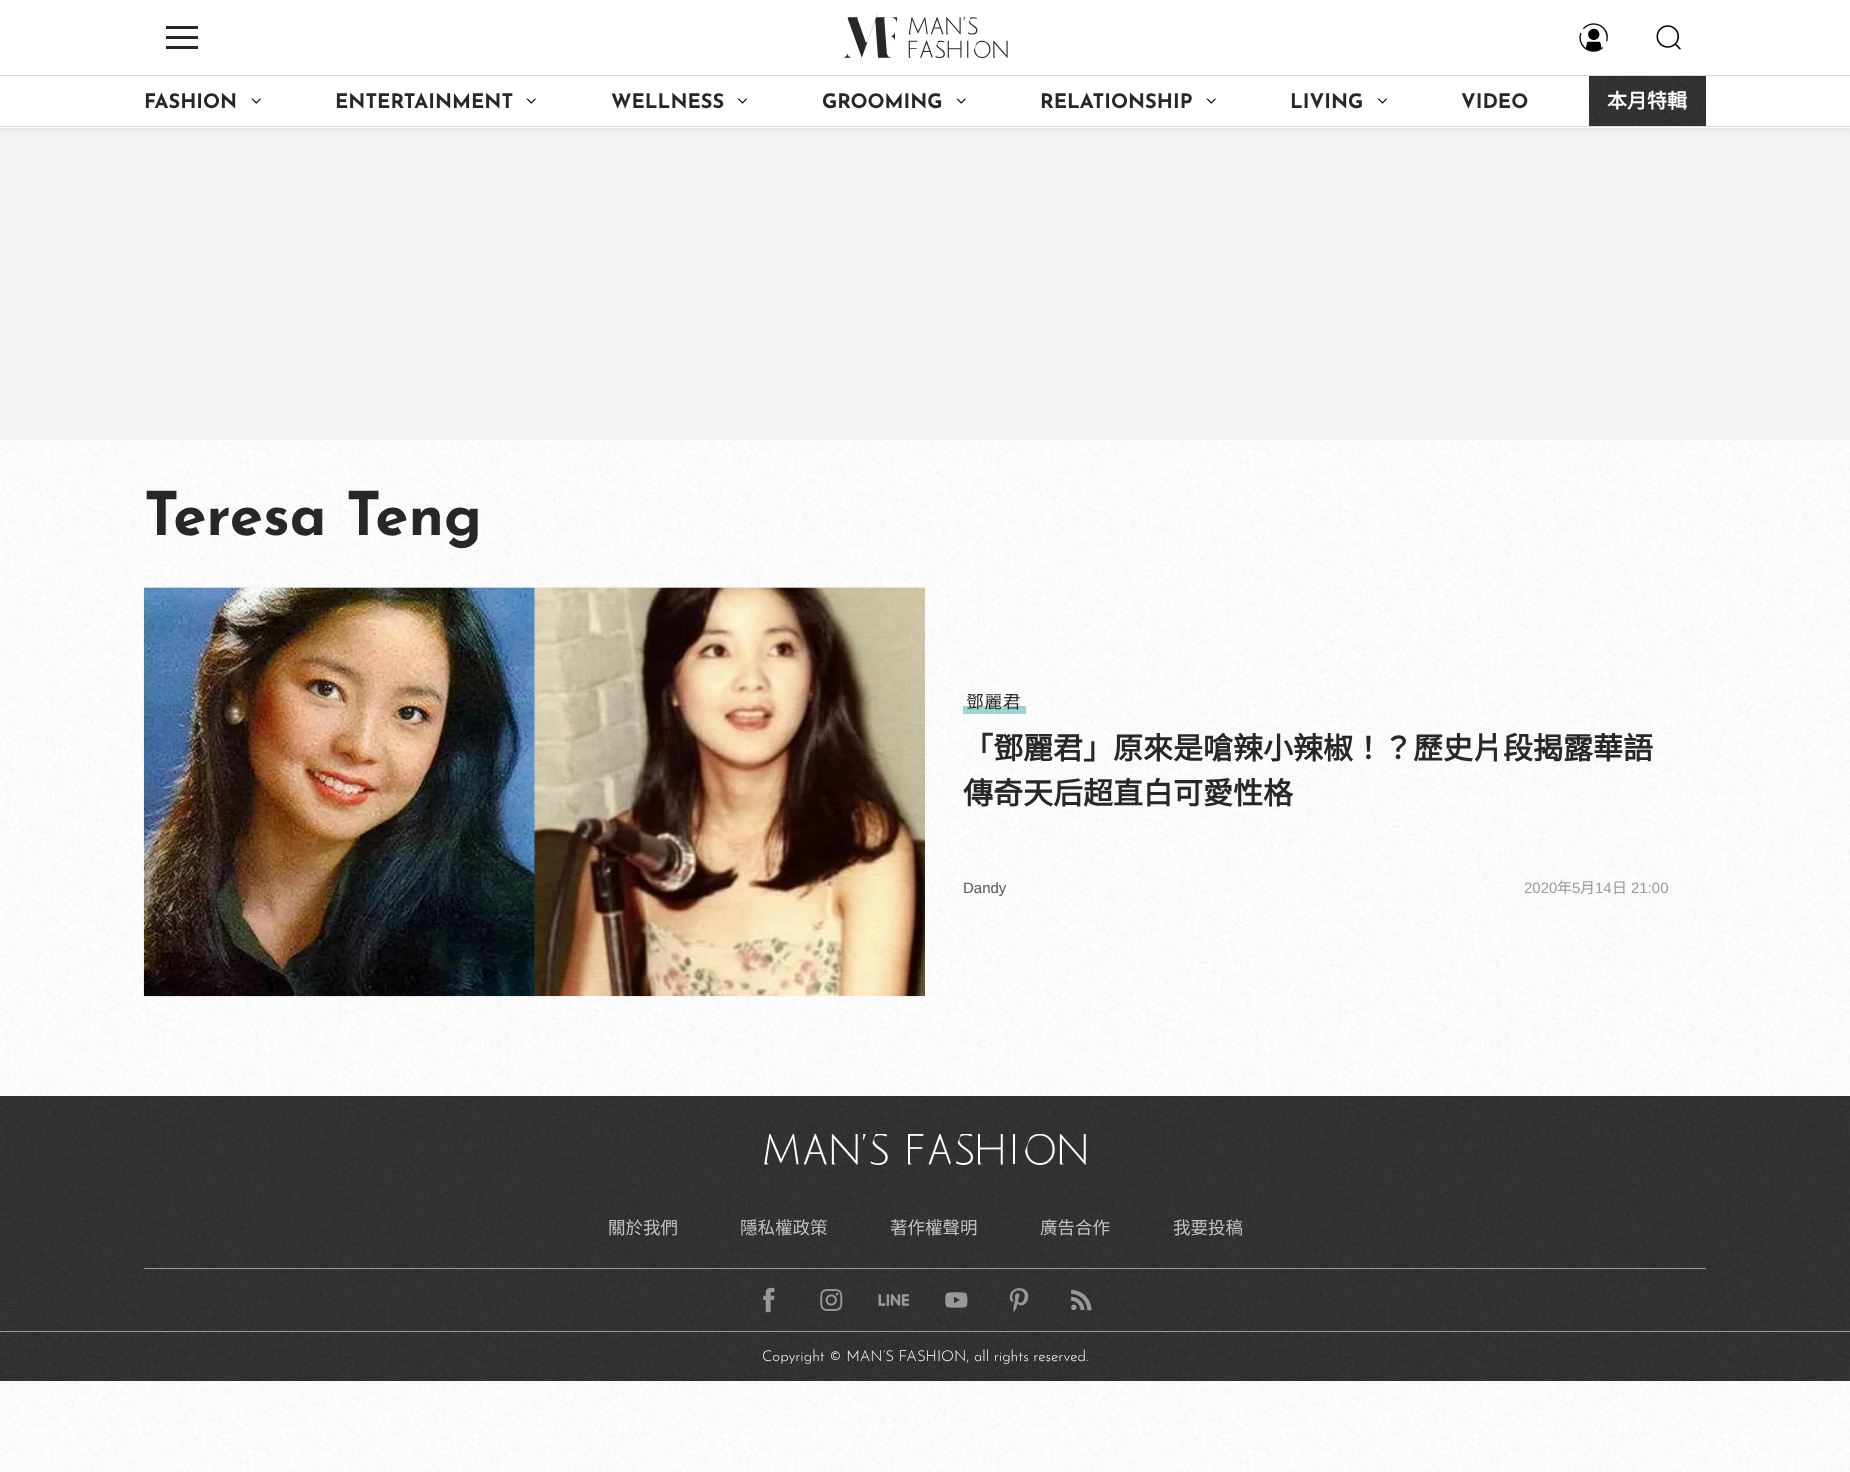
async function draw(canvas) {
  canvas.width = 1850
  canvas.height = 1472
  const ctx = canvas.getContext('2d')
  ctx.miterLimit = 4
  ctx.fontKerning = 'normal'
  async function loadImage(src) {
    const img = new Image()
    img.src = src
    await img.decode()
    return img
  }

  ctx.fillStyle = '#fff'
  ctx.fillRect(0, 0, 1850, 1472)
  ctx.drawImage(await loadImage('image0.png'), 0, 440, 1850, 1032)
  ctx.fillStyle = '#f3f3f3'
  ctx.fillRect(0, 128, 1850, 312)
  ctx.fillStyle = '#00000026'
  ctx.filter = 'blur(3px)'
  ctx.beginPath()
  ctx.rect(0, 0, 1850, 128)
  ctx.fill()
  ctx.filter = 'none'
  ctx.fillStyle = '#fff'
  ctx.fillRect(0, 0, 1850, 128)
  ctx.fillStyle = '#272727'
  ctx.fillRect(166, 26, 32, 3)
  ctx.fillRect(166, 36, 32, 3)
  ctx.fillRect(166, 46, 32, 3)
  ctx.drawImage(await loadImage('image1.png'), 843, 13, 165, 49)
  ctx.drawImage(await loadImage('image2.png'), 1579, 23, 29, 29)
  ctx.drawImage(await loadImage('image3.png'), 1656, 25, 25, 25)
  ctx.fillStyle = '#d8d8d8'
  ctx.fillRect(0, 75, 1850, 1)
  ctx.fillRect(0, 126, 1850, 1)
  ctx.font = 'bold 20px Josefin Sans'
  ctx.fillStyle = '#272727'
  ctx.fillText('FASHION', 144, 108)
  ctx.drawImage(await loadImage('image4.png'), 251, 98, 11, 6)
  ctx.fillText('ENTERTAINMENT', 335, 108)
  ctx.drawImage(await loadImage('image4.png'), 526, 98, 11, 6)
  ctx.fillText('WELLNESS', 611, 108)
  ctx.drawImage(await loadImage('image5.png'), 737, 98, 11, 6)
  ctx.fillText('GROOMING', 822, 108)
  ctx.drawImage(await loadImage('image4.png'), 956, 98, 11, 6)
  ctx.fillText('RELATIONSHIP', 1040, 108)
  ctx.drawImage(await loadImage('image4.png'), 1206, 98, 11, 6)
  ctx.fillText('LIVING', 1290, 108)
  ctx.drawImage(await loadImage('image5.png'), 1377, 98, 11, 6)
  ctx.fillText('VIDEO', 1461, 108)
  ctx.fillRect(1589, 76, 117, 50)
  ctx.drawImage(await loadImage('image6.png'), 1589, 76, 117, 50)
  ctx.font = 'bold 20px Noto Sans CJK TC'
  ctx.fillStyle = '#fff'
  ctx.fillText('本月特輯', 1607, 108)
  ctx.font = 'bold 60px Josefin Sans'
  ctx.fillStyle = '#272727'
  ctx.fillText('Teresa Teng', 144, 535)
  ctx.drawImage(await loadImage('image8.png'), 144, 587, 781, 1)
  ctx.drawImage(await loadImage('image7.png'), 143, 587, 782, 410)
  ctx.fillStyle = '#71c6bcb3'
  ctx.fillRect(963, 706, 63, 8)
  ctx.letterSpacing = '1px'
  ctx.font = '17.5px Noto Sans CJK TC'
  ctx.fillStyle = '#272727'
  ctx.fillText('鄧麗君', 966, 708)
  ctx.letterSpacing = '0px'
  ctx.font = 'bold 30px Noto Sans CJK TC'
  ctx.fillText('「鄧麗君」原來是嗆辣小辣椒！？歷史片段揭露華語', 963, 759)
  ctx.fillText('傳奇天后超直白可愛性格', 963, 804)
  ctx.font = '15px Liberation Sans'
  ctx.fillStyle = '#555'
  ctx.fillText('Dandy', 963, 893)
  ctx.fillStyle = '#999'
  ctx.fillText('2020', 1524, 893)
  ctx.font = '15px Noto Sans CJK TC'
  ctx.fillText('年', 1557, 893)
  ctx.font = '15px Liberation Sans'
  ctx.fillText('5', 1572, 893)
  ctx.font = '15px Noto Sans CJK TC'
  ctx.fillText('月', 1580, 893)
  ctx.font = '15px Liberation Sans'
  ctx.fillText('14', 1595, 893)
  ctx.font = '15px Noto Sans CJK TC'
  ctx.fillText('日', 1612, 893)
  ctx.font = '15px Liberation Sans'
  ctx.fillText('21:00', 1631, 893)
  ctx.fillStyle = '#272727'
  ctx.fillRect(0, 1096, 1850, 285)
  ctx.drawImage(await loadImage('image9.png'), 0, 1096, 1850, 285)
  ctx.drawImage(await loadImage('image10.png'), 764, 1134, 322, 31)
  ctx.font = '17.5px Noto Sans CJK TC'
  ctx.fillStyle = '#c1c1c1'
  ctx.fillText('關於我們', 608, 1234)
  ctx.fillText('隱私權政策', 740, 1234)
  ctx.fillText('著作權聲明', 890, 1234)
  ctx.fillText('廣告合作', 1040, 1234)
  ctx.fillText('我要投稿', 1173, 1234)
  ctx.fillStyle = '#999'
  ctx.fillRect(144, 1268, 1562, 1)
  ctx.drawImage(await loadImage('image11.png'), 763, 1287, 12, 26)
  ctx.drawImage(await loadImage('image12.png'), 820, 1289, 23, 22)
  ctx.drawImage(await loadImage('image13.png'), 878, 1294, 31, 12)
  ctx.drawImage(await loadImage('image14.png'), 945, 1292, 23, 16)
  ctx.drawImage(await loadImage('image15.png'), 1009, 1288, 20, 24)
  ctx.drawImage(await loadImage('image16.png'), 1071, 1289, 21, 22)
  ctx.fillRect(0, 1331, 1850, 1)
  ctx.font = '300 15px Josefin Sans'
  ctx.fillStyle = '#fff'
  ctx.fillText('Copyright © MAN’S FASHION, all rights reserved.', 762, 1361)
}

draw(document.querySelector('canvas'))
